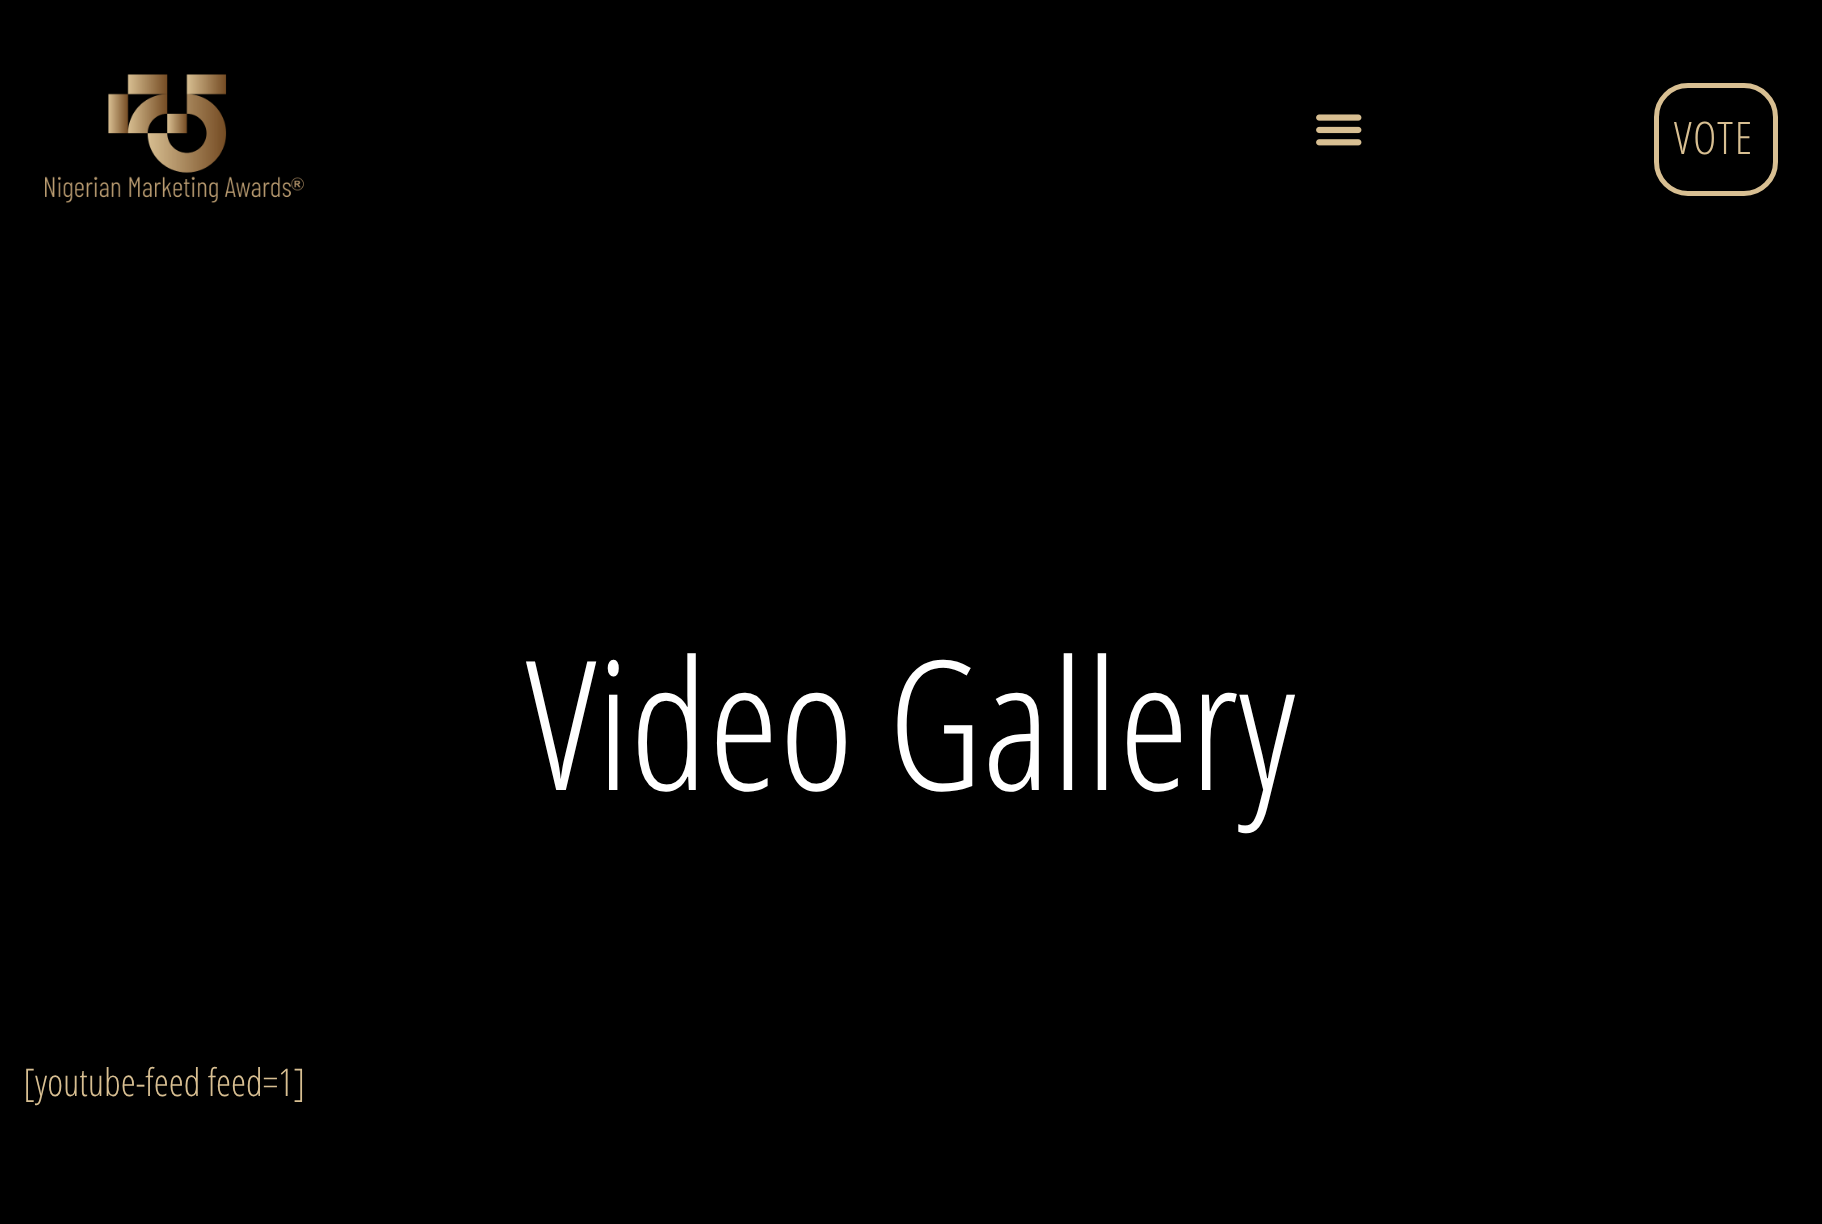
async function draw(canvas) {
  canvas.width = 1822
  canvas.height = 1224
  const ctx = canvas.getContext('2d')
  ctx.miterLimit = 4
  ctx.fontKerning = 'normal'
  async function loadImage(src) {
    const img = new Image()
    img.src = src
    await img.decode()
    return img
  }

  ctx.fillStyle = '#000'
  ctx.fillRect(0, 0, 1822, 1224)
  ctx.drawImage(await loadImage('image0.png'), 45, 74, 259, 129)
  ctx.drawImage(await loadImage('image1.png'), 1316, 114, 46, 32)
  ctx.beginPath()
  ctx.roundRect(1656.5, 85.5, 119, 108, 31.5)
  ctx.strokeStyle = '#d8bf92'
  ctx.lineWidth = 5
  ctx.stroke()
  ctx.letterSpacing = '2px'
  ctx.font = '300 45px Open Sans'
  ctx.fillStyle = '#d8bf92'
  ctx.fillText('VOTE', 1674, 154)
  ctx.letterSpacing = '0px'
  ctx.font = '300 180px Open Sans'
  ctx.fillStyle = '#fff'
  ctx.fillText('Video Gallery', 526, 790)
  ctx.font = '300 38.25px Open Sans'
  ctx.fillStyle = '#d8bf92'
  ctx.fillText('[youtube-feed feed=1]', 23, 1096)
}

draw(document.querySelector('canvas'))
